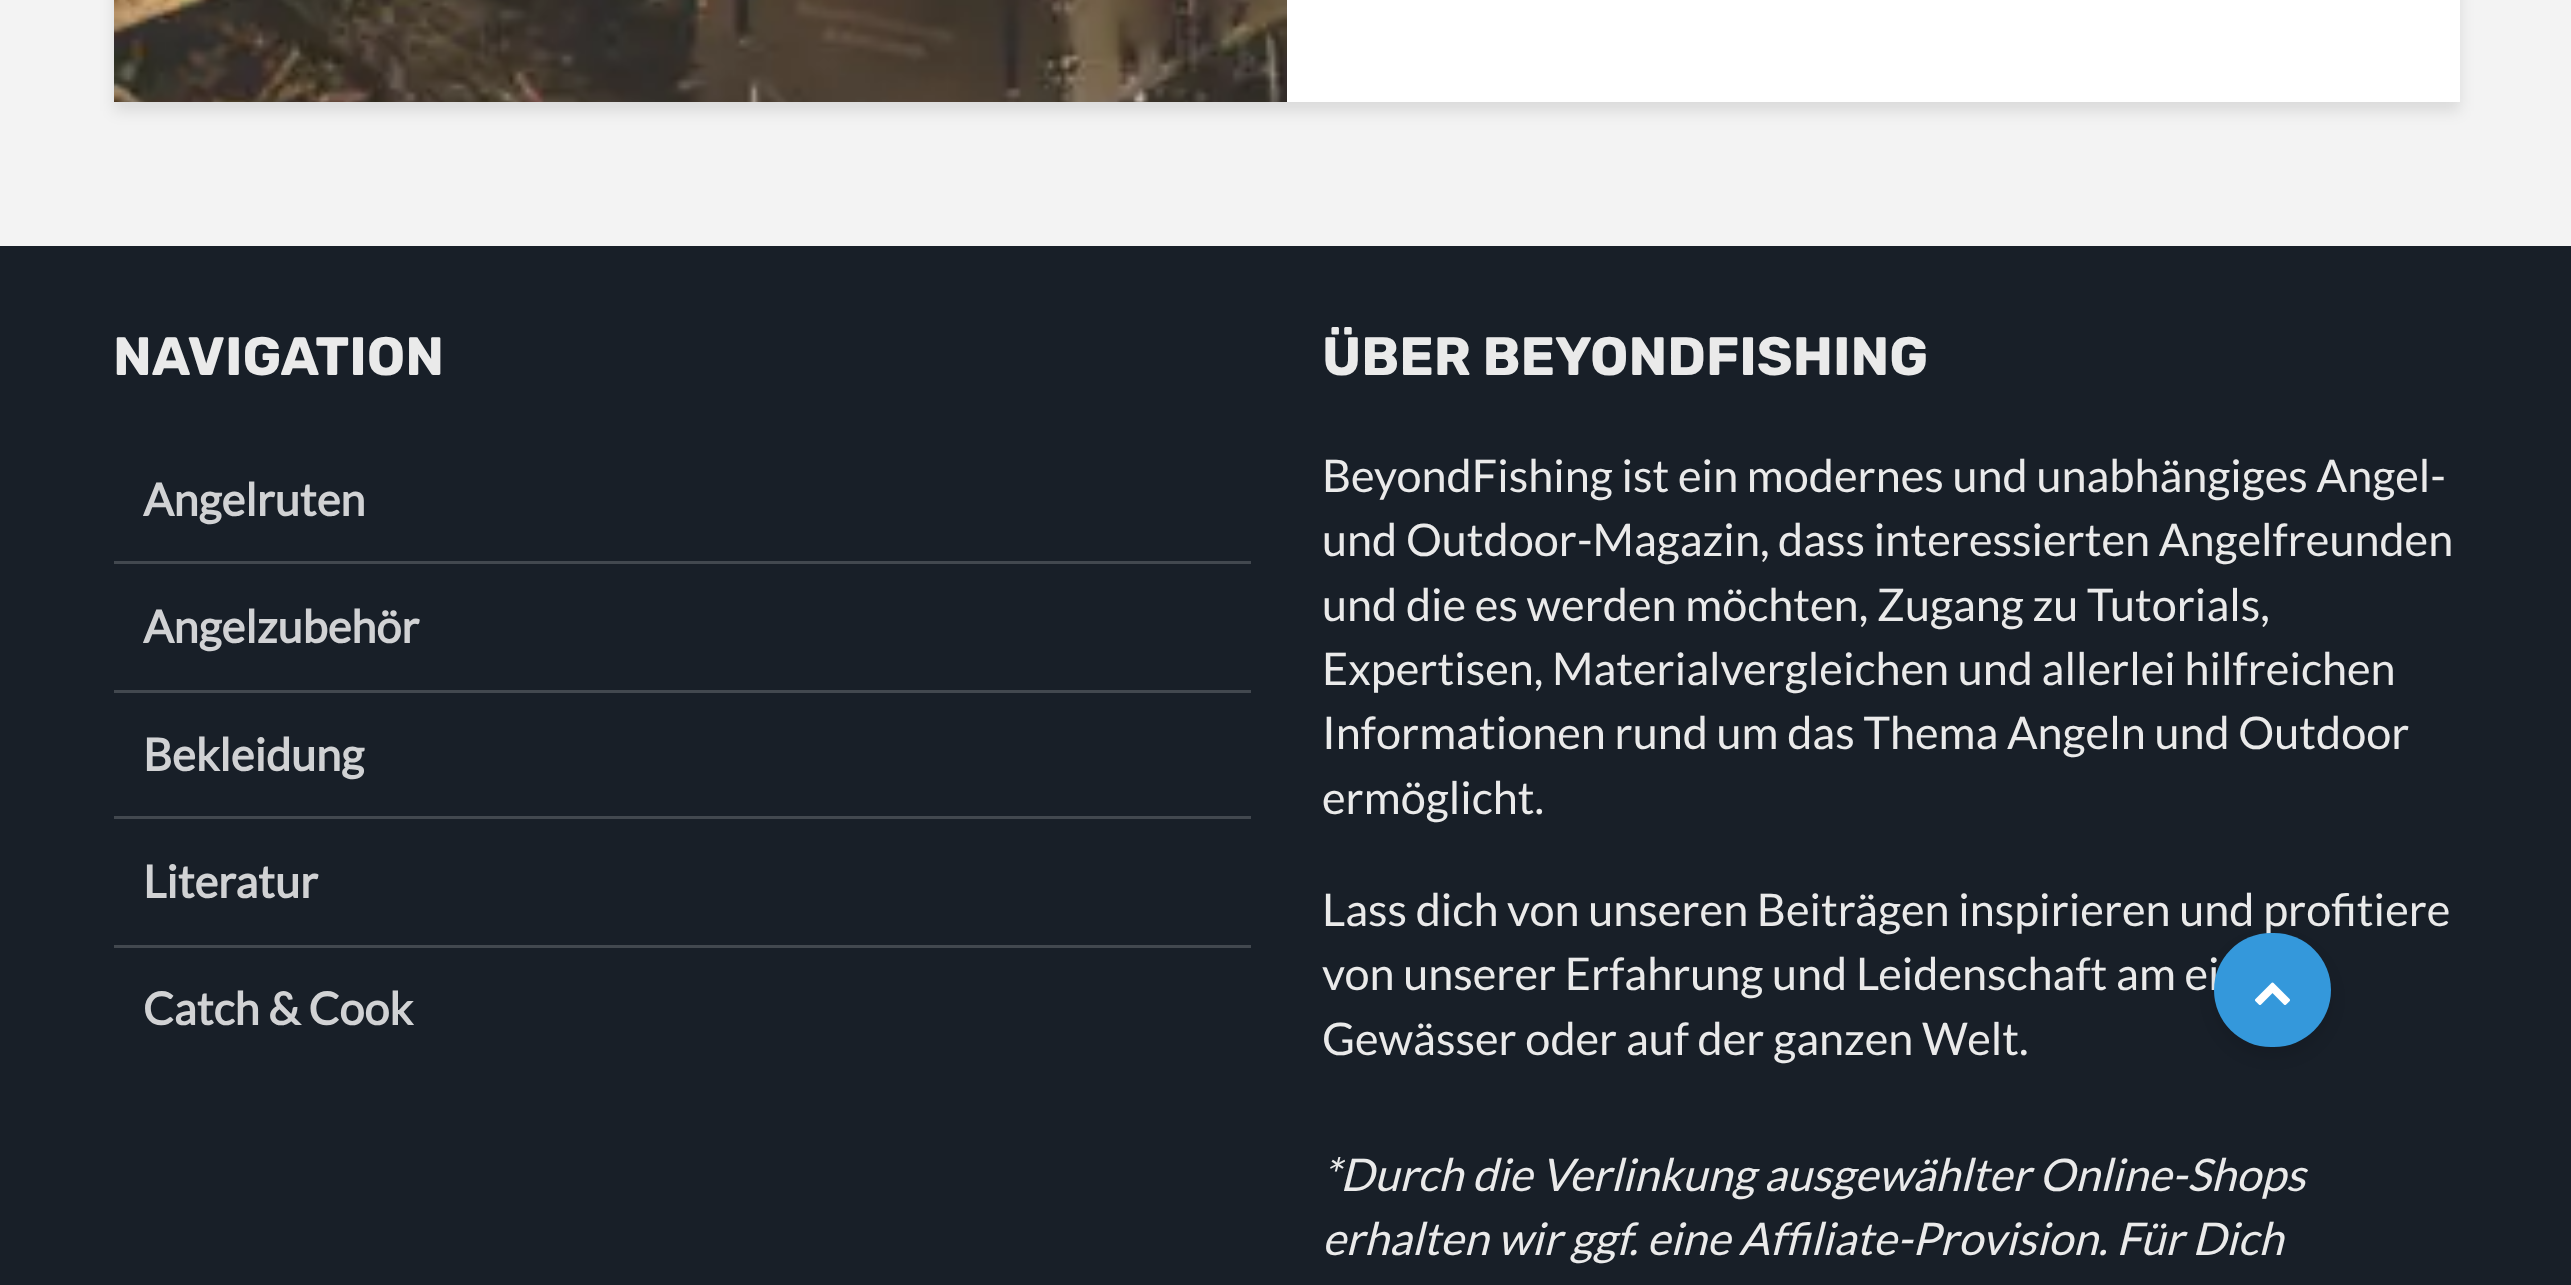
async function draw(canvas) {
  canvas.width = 2571
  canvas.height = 1285
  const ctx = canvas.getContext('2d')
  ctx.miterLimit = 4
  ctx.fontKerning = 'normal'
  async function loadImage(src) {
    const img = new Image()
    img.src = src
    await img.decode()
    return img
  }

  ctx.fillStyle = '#f3f3f3'
  ctx.fillRect(0, 0, 2571, 1285)
  ctx.fillStyle = '#0001011a'
  ctx.filter = 'blur(7.5px)'
  ctx.beginPath()
  ctx.rect(114, -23, 2346, 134)
  ctx.fill()
  ctx.filter = 'none'
  ctx.fillStyle = '#fff'
  ctx.fillRect(1287, 0, 1173, 102)
  ctx.drawImage(await loadImage('image0.png'), 114, 0, 1173, 102)
  ctx.fillStyle = '#181f28'
  ctx.fillRect(0, 246, 2571, 1039)
  ctx.font = '300 54px Rubik'
  ctx.fillStyle = '#eaeaea'
  ctx.fillText('NAVIGATION', 113, 375)
  ctx.fillStyle = '#42484f'
  ctx.fillRect(114, 561, 1137, 3)
  ctx.font = 'bold 45px Lato'
  ctx.fillStyle = '#d1d2d4'
  ctx.fillText('Angelruten', 143, 516)
  ctx.fillStyle = '#42484f'
  ctx.fillRect(114, 690, 1137, 3)
  ctx.fillStyle = '#d1d2d4'
  ctx.fillText('Angelzubehör', 143, 643)
  ctx.fillStyle = '#42484f'
  ctx.fillRect(114, 816, 1137, 3)
  ctx.fillStyle = '#d1d2d4'
  ctx.fillText('Bekleidung', 143, 771)
  ctx.fillStyle = '#42484f'
  ctx.fillRect(114, 945, 1137, 3)
  ctx.fillStyle = '#d1d2d4'
  ctx.fillText('Literatur', 143, 898)
  ctx.fillText('Catch & Cook', 143, 1025)
  ctx.font = '300 54px Rubik'
  ctx.fillStyle = '#eaeaea'
  ctx.fillText('ÜBER BEYONDFISHING', 1322, 375)
  ctx.font = '45px Lato'
  ctx.fillText('BeyondFishing ist ein modernes und unabhängiges Angel-', 1322, 492)
  ctx.fillText('und Outdoor-Magazin, dass interessierten Angelfreunden', 1322, 556)
  ctx.fillText('und die es werden möchten, Zugang zu Tutorials,', 1322, 621)
  ctx.fillText('Expertisen, Materialvergleichen und allerlei hilfreichen', 1322, 685)
  ctx.fillText('Informationen rund um das Thema Angeln und Outdoor', 1322, 749)
  ctx.fillText('ermöglicht.', 1322, 814)
  ctx.fillText('Lass dich von unseren Beiträgen inspirieren und profitiere', 1322, 926)
  ctx.fillText('von unserer Erfahrung und Leidenschaft am ei', 1322, 990)
  ctx.fillText('Gewässer oder auf der ganzen Welt.', 1322, 1055)
  ctx.font = 'italic 45px Lato'
  ctx.fillText('*Durch die Verlinkung ausgewählter Online-Shops', 1322, 1191)
  ctx.fillText('erhalten wir ggf. eine Affiliate-Provision. Für Dich', 1322, 1255)
  ctx.fillStyle = '#0000001a'
  ctx.filter = 'blur(7.5px)'
  ctx.beginPath()
  ctx.roundRect(2214, 942, 117, 114, 57)
  ctx.fill()
  ctx.filter = 'none'
  ctx.fillStyle = '#3498db'
  ctx.beginPath()
  ctx.roundRect(2214, 933, 117, 114, 57)
  ctx.fill()
  ctx.drawImage(await loadImage('image1.png'), 2255, 982, 35, 23)
}

draw(document.querySelector('canvas'))
